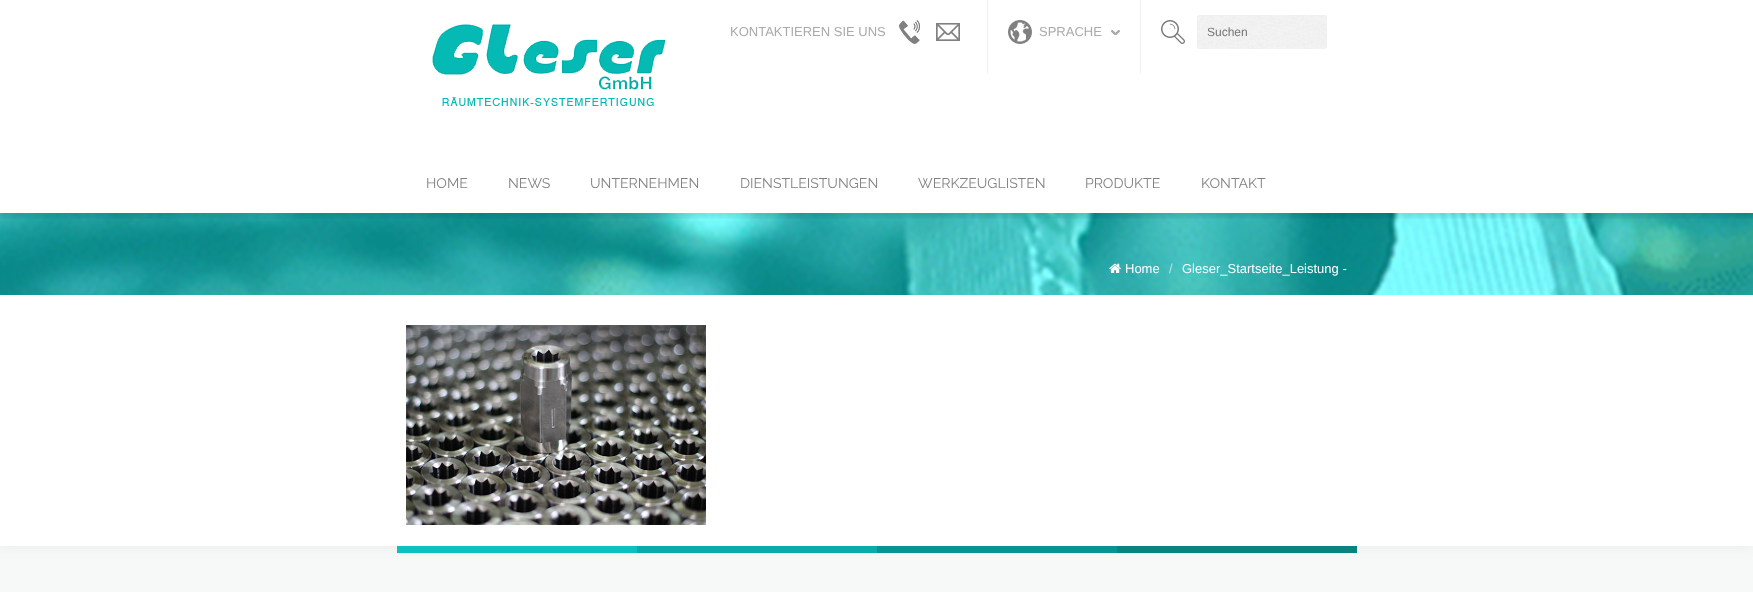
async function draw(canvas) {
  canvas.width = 1753
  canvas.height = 592
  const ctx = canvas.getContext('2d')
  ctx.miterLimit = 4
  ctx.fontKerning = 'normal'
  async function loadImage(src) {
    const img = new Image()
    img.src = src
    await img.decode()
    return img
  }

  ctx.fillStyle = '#f7f8f8'
  ctx.fillRect(0, 0, 1753, 592)
  ctx.fillStyle = '#0000000f'
  ctx.filter = 'blur(7.5px)'
  ctx.beginPath()
  ctx.rect(0, 0, 1753, 546)
  ctx.fill()
  ctx.filter = 'none'
  ctx.fillStyle = '#fff'
  ctx.fillRect(0, 0, 1753, 546)
  ctx.drawImage(await loadImage('image0.png'), 432, 24, 234, 82)
  ctx.fillStyle = '#f2f2f2'
  ctx.fillRect(987, 0, 1, 74)
  ctx.font = '13px Liberation Sans'
  ctx.fillStyle = '#aaa'
  ctx.fillText('KONTAKTIEREN SIE UNS', 730, 36)
  ctx.drawImage(await loadImage('image1.png'), 899, 20, 21, 24)
  ctx.drawImage(await loadImage('image2.png'), 936, 23, 24, 18)
  ctx.fillStyle = '#f2f2f2'
  ctx.fillRect(1140, 0, 1, 74)
  ctx.drawImage(await loadImage('image3.png'), 1111, 30, 9, 5)
  ctx.drawImage(await loadImage('image4.png'), 1008, 20, 24, 24)
  ctx.fillStyle = '#aaa'
  ctx.fillText('SPRACHE', 1039, 36)
  ctx.drawImage(await loadImage('image5.png'), 1161, 20, 24, 24)
  ctx.fillStyle = '#f3f3f3'
  ctx.beginPath()
  ctx.roundRect(1197, 15, 130, 34, 3)
  ctx.fill()
  ctx.drawImage(await loadImage('image6.png'), 1197, 15, 130, 34)
  ctx.font = '12px Liberation Sans'
  ctx.fillStyle = '#757575'
  ctx.fillText('Suchen', 1207, 36)
  ctx.font = '14px Raleway'
  ctx.fillStyle = '#818181'
  ctx.fillText('HOME', 426, 188)
  ctx.fillText('NEWS', 508, 188)
  ctx.fillText('UNTERNEHMEN', 590, 188)
  ctx.fillText('DIENSTLEISTUNGEN', 740, 188)
  ctx.fillText('WERKZEUGLISTEN', 918, 188)
  ctx.fillText('PRODUKTE', 1085, 188)
  ctx.fillText('KONTAKT', 1201, 188)
  ctx.drawImage(await loadImage('image8.png'), 0, 213, 1753, 82)
  ctx.drawImage(await loadImage('image7.png'), 0, 213, 1753, 6)
  ctx.drawImage(await loadImage('image9.png'), 1109, 263, 12, 10)
  ctx.font = '13px Liberation Sans'
  ctx.fillStyle = '#fff'
  ctx.fillText('Home', 1125, 273)
  ctx.fillStyle = '#b4e5e3'
  ctx.fillText('/', 1169, 273)
  ctx.fillStyle = '#fff'
  ctx.fillText('Gleser_Startseite_Leistung -', 1182, 273)
  ctx.drawImage(await loadImage('image10.png'), 406, 325, 300, 200)
  ctx.fillStyle = '#0bc1bd'
  ctx.fillRect(397, 546, 240, 7)
  ctx.fillStyle = '#0aaaa6'
  ctx.fillRect(637, 546, 240, 7)
  ctx.fillStyle = '#089390'
  ctx.fillRect(877, 546, 240, 7)
  ctx.fillStyle = '#078381'
  ctx.fillRect(1117, 546, 240, 7)
}

draw(document.querySelector('canvas'))
